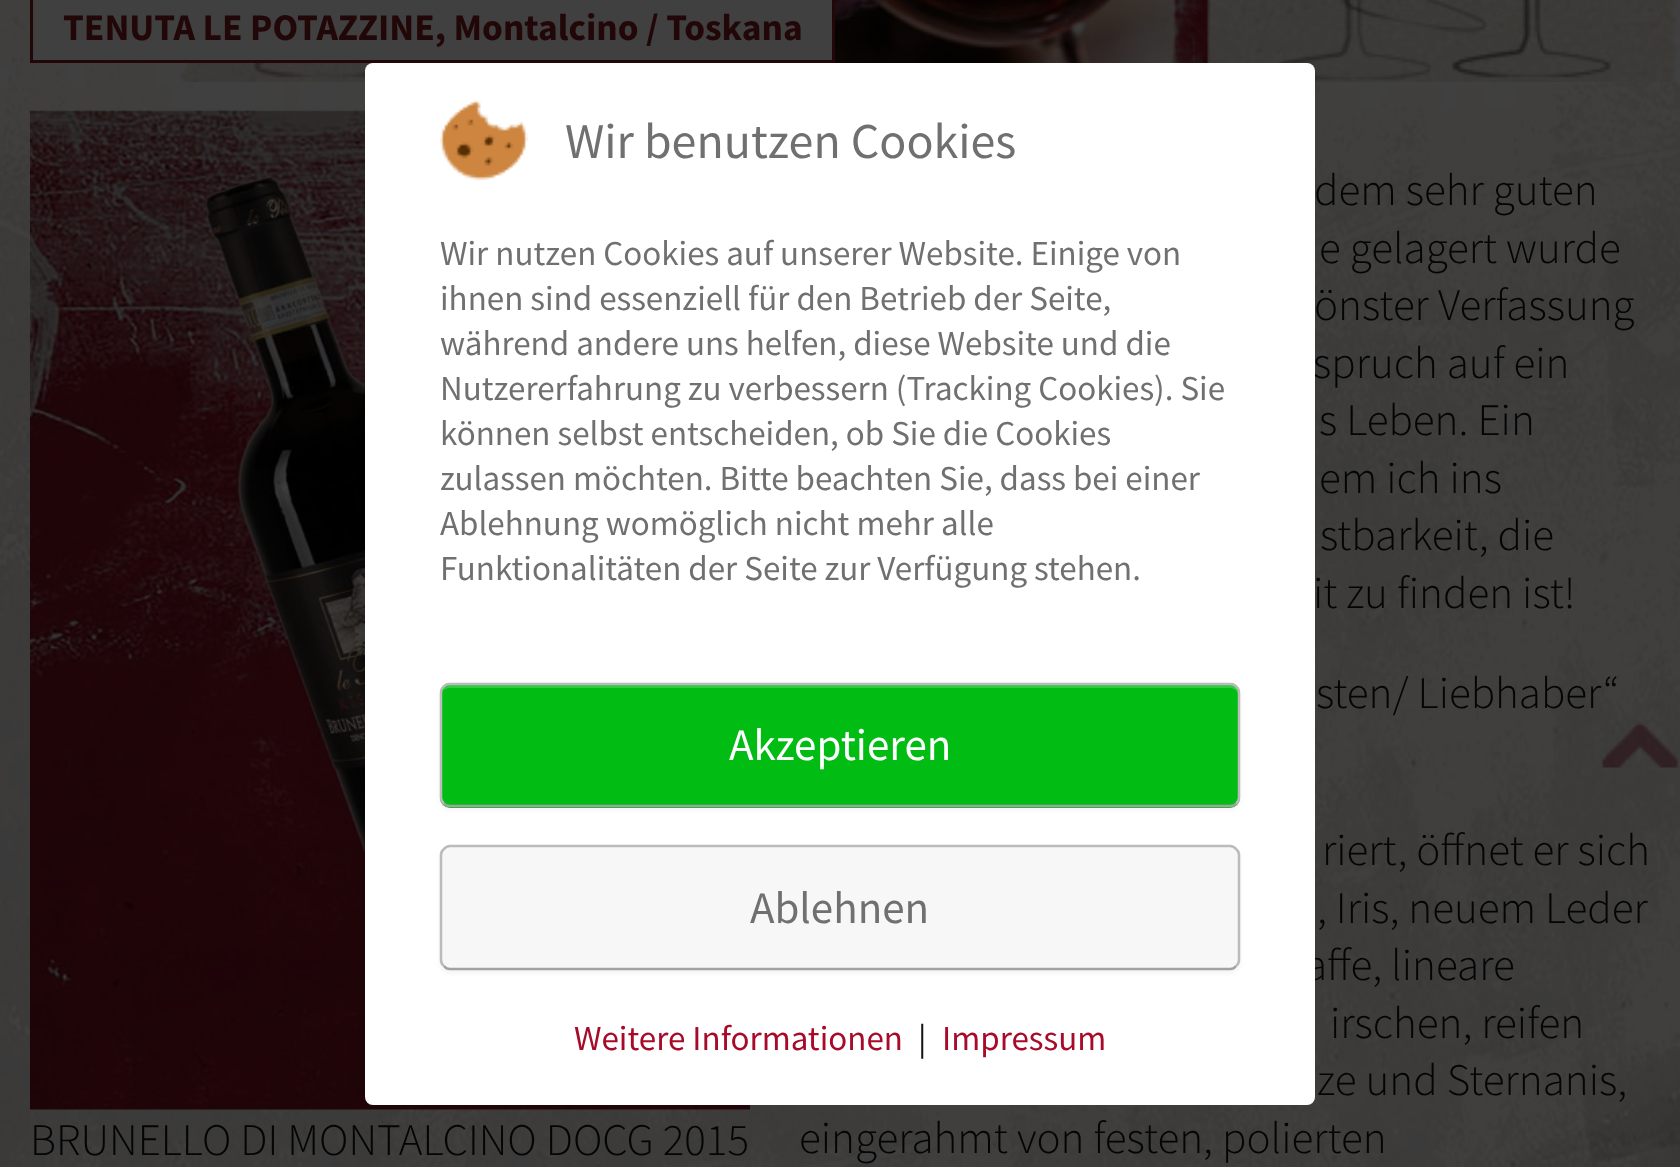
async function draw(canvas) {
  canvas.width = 1680
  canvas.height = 1167
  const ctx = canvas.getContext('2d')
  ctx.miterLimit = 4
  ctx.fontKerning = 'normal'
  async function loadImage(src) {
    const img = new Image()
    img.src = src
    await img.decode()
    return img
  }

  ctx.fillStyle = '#fff'
  ctx.fillRect(0, 0, 1680, 1167)
  ctx.drawImage(await loadImage('image0.png'), 0, 0, 1680, 1167)
  ctx.drawImage(await loadImage('image1.png'), 180, 0, 1500, 82)
  ctx.fillStyle = '#404040'
  ctx.fillRect(35, 0, 797, 60)
  ctx.strokeStyle = '#220708'
  ctx.lineWidth = 3
  ctx.strokeRect(31.5, -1.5, 802, 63)
  ctx.font = 'bold 37.5px Source Sans Pro'
  ctx.fillStyle = '#220708'
  ctx.fillText('TENUTA LE POTAZZINE, Montalcino / Toskana', 63, 40)
  ctx.drawImage(await loadImage('image2.png'), 30, 109, 720, 1001)
  ctx.font = '300 45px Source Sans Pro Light'
  ctx.fillStyle = '#040404'
  ctx.fillText('BRUNELLO DI MONTALCINO DOCG 2015', 30, 1155)
  ctx.fillText('dem sehr guten', 1314, 205)
  ctx.fillText('e gelagert wurde', 1319, 263)
  ctx.fillText('önster Verfassung', 1314, 320)
  ctx.fillText('spruch auf ein', 1313, 378)
  ctx.fillText('s Leben. Ein', 1319, 435)
  ctx.fillText('em ich ins', 1319, 493)
  ctx.fillText('stbarkeit, die', 1320, 550)
  ctx.fillText('it zu finden ist!', 1313, 608)
  ctx.fillText('sten/ Liebhaber“', 1316, 708)
  ctx.fillText('riert, öffnet er sich', 1322, 865)
  ctx.fillText(', Iris, neuem Leder', 1317, 923)
  ctx.fillText('affe, lineare', 1305, 980)
  ctx.fillText('irschen, reifen', 1330, 1038)
  ctx.fillText('ze und Sternanis,', 1317, 1095)
  ctx.fillText('eingerahmt von festen, polierten', 799, 1153)
  ctx.drawImage(await loadImage('image3.png'), 1601, 722, 78, 46)
  ctx.fillStyle = '#fff'
  ctx.beginPath()
  ctx.roundRect(365, 63, 950, 1042, 8)
  ctx.fill()
  ctx.drawImage(await loadImage('image4.png'), 440, 100, 88, 80)
  ctx.font = '50px Source Sans Pro'
  ctx.fillStyle = '#707070'
  ctx.fillText('Wir benutzen Cookies', 565, 158)
  ctx.font = '35px Source Sans Pro'
  ctx.fillText('Wir nutzen Cookies auf unserer Website. Einige von', 440, 265)
  ctx.fillText('ihnen sind essenziell für den Betrieb der Seite,', 440, 310)
  ctx.fillText('während andere uns helfen, diese Website und die', 440, 355)
  ctx.fillText('Nutzererfahrung zu verbessern (Tracking Cookies). Sie', 440, 400)
  ctx.fillText('können selbst entscheiden, ob Sie die Cookies', 440, 445)
  ctx.fillText('zulassen möchten. Bitte beachten Sie, dass bei einer', 440, 490)
  ctx.fillText('Ablehnung womöglich nicht mehr alle', 440, 535)
  ctx.fillText('Funktionalitäten der Seite zur Verfügung stehen.', 440, 580)
  ctx.fillStyle = '#0000000d'
  ctx.filter = 'blur(2.5px)'
  ctx.beginPath()
  ctx.roundRect(440, 685, 800, 125, 10)
  ctx.fill()
  ctx.filter = 'none'
  ctx.fillStyle = '#00bc13'
  ctx.beginPath()
  ctx.roundRect(440, 683, 800, 125, 10)
  ctx.fill()
  ctx.fillStyle = '#33c942'
  ctx.beginPath()
  ctx.moveTo(450, 688)
  ctx.lineTo(1230, 688)
  ctx.bezierCurveTo(1234, 688, 1238, 691, 1238, 695)
  ctx.lineTo(1238, 693)
  ctx.bezierCurveTo(1238, 689, 1234, 685, 1230, 685)
  ctx.lineTo(451, 685)
  ctx.bezierCurveTo(447, 685, 444, 688, 443, 691)
  ctx.bezierCurveTo(445, 689, 447, 688, 450, 688)
  ctx.closePath()
  ctx.fill()
  ctx.beginPath()
  ctx.moveTo(1236, 803.5)
  ctx.bezierCurveTo(1234.5, 805.5, 1232.5, 806, 1230, 806)
  ctx.lineTo(450, 806)
  ctx.bezierCurveTo(447.5, 806, 445.5, 805.5, 444, 803.5)
  ctx.strokeStyle = '#a2a2a2'
  ctx.lineWidth = 2.5
  ctx.stroke()
  ctx.beginPath()
  ctx.moveTo(444, 803.5)
  ctx.bezierCurveTo(442, 802, 441, 800, 441, 797.5)
  ctx.lineTo(441, 692.5)
  ctx.bezierCurveTo(441, 690, 442, 688, 444, 686.5)
  ctx.bezierCurveTo(445.5, 684.5, 447.5, 684, 450, 684)
  ctx.lineTo(1230, 684)
  ctx.bezierCurveTo(1232.5, 684, 1234.5, 684.5, 1236, 686.5)
  ctx.bezierCurveTo(1238, 688, 1239, 690, 1239, 692.5)
  ctx.lineTo(1239, 797.5)
  ctx.bezierCurveTo(1239, 800, 1238, 802, 1236, 803.5)
  ctx.strokeStyle = '#bbb'
  ctx.stroke()
  ctx.font = '45px Source Sans Pro'
  ctx.fillStyle = '#fff'
  ctx.fillText('Akzeptieren', 729, 760)
  ctx.fillStyle = '#0000000d'
  ctx.filter = 'blur(2.5px)'
  ctx.beginPath()
  ctx.roundRect(440, 848, 800, 125, 10)
  ctx.fill()
  ctx.filter = 'none'
  ctx.fillStyle = '#f7f7f7'
  ctx.beginPath()
  ctx.roundRect(440, 845, 800, 125, 10)
  ctx.fill()
  ctx.beginPath()
  ctx.moveTo(1236, 966)
  ctx.bezierCurveTo(1234.5, 968, 1232.5, 969, 1230, 969)
  ctx.lineTo(450, 969)
  ctx.bezierCurveTo(447.5, 969, 445.5, 968, 444, 966)
  ctx.strokeStyle = '#a2a2a2'
  ctx.stroke()
  ctx.beginPath()
  ctx.moveTo(444, 966)
  ctx.bezierCurveTo(442, 964.5, 441, 962.5, 441, 960)
  ctx.lineTo(441, 855)
  ctx.bezierCurveTo(441, 852.5, 442, 850.5, 444, 849)
  ctx.bezierCurveTo(445.5, 847, 447.5, 846, 450, 846)
  ctx.lineTo(1230, 846)
  ctx.bezierCurveTo(1232.5, 846, 1234.5, 847, 1236, 849)
  ctx.bezierCurveTo(1238, 850.5, 1239, 852.5, 1239, 855)
  ctx.lineTo(1239, 960)
  ctx.bezierCurveTo(1239, 962.5, 1238, 964.5, 1236, 966)
  ctx.strokeStyle = '#bbb'
  ctx.stroke()
  ctx.fillStyle = '#707070'
  ctx.fillText('Ablehnen', 750, 923)
  ctx.font = '35px Source Sans Pro'
  ctx.fillStyle = '#a70b29'
  ctx.fillText('Weitere Informationen', 574, 1050)
  ctx.fillStyle = '#111'
  ctx.fillText('|', 918, 1050)
  ctx.fillStyle = '#a70b29'
  ctx.fillText('Impressum', 942, 1050)
}

draw(document.querySelector('canvas'))
